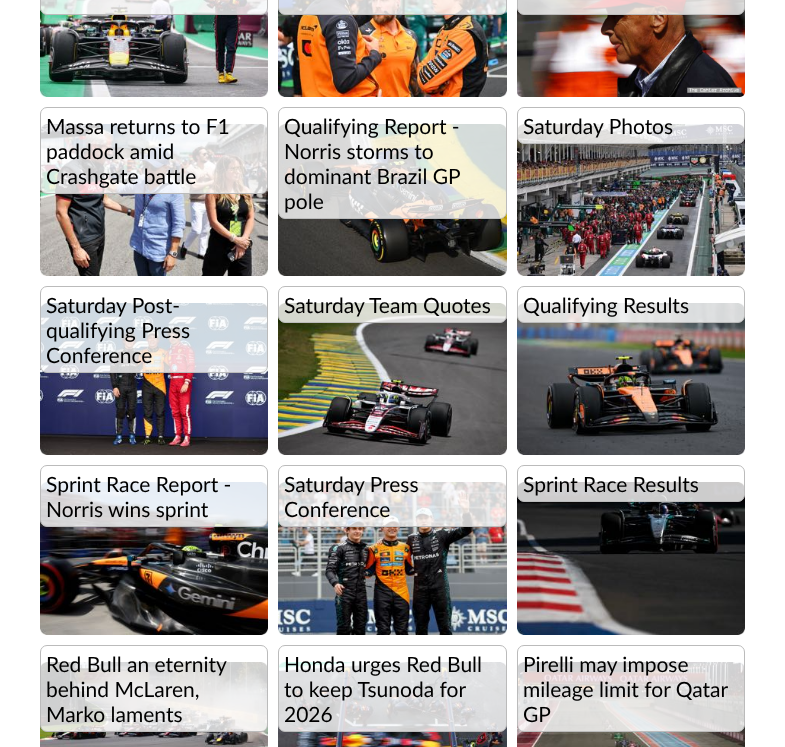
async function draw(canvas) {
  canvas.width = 785
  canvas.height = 747
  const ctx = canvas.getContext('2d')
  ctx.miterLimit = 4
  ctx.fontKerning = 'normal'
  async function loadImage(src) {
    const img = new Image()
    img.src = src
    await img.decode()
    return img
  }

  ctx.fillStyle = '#fff'
  ctx.fillRect(0, 0, 785, 747)
  ctx.drawImage(await loadImage('image0.png'), 40, 0, 228, 97)
  ctx.fillStyle = '#ffffffcc'
  ctx.beginPath()
  ctx.roundRect(40.5, -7.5, 227, 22, 6.5)
  ctx.fill()
  ctx.strokeStyle = '#bbb'
  ctx.stroke()
  ctx.drawImage(await loadImage('image1.png'), 278, 0, 229, 97)
  ctx.beginPath()
  ctx.roundRect(278.5, -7.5, 228, 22, 6.5)
  ctx.fill()
  ctx.stroke()
  ctx.drawImage(await loadImage('image2.png'), 517, 0, 228, 97)
  ctx.beginPath()
  ctx.roundRect(517.5, -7.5, 227, 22, 6.5)
  ctx.fill()
  ctx.stroke()
  ctx.drawImage(await loadImage('image3.png'), 40, 124, 228, 152)
  ctx.beginPath()
  ctx.roundRect(40.5, 107.5, 227, 86, 6.5)
  ctx.fill()
  ctx.stroke()
  ctx.font = '21px Lato'
  ctx.fillStyle = '#000'
  ctx.fillText('Massa returns to F1', 46, 134)
  ctx.fillText('paddock amid', 46, 159)
  ctx.fillText('Crashgate battle', 46, 184)
  ctx.drawImage(await loadImage('image4.png'), 278, 124, 229, 152)
  ctx.fillStyle = '#ffffffcc'
  ctx.beginPath()
  ctx.roundRect(278.5, 107.5, 228, 111, 6.5)
  ctx.fill()
  ctx.stroke()
  ctx.fillStyle = '#000'
  ctx.fillText('Qualifying Report -', 284, 134)
  ctx.fillText('Norris storms to', 284, 159)
  ctx.fillText('dominant Brazil GP', 284, 184)
  ctx.fillText('pole', 284, 209)
  ctx.drawImage(await loadImage('image5.png'), 517, 124, 228, 152)
  ctx.fillStyle = '#ffffffcc'
  ctx.beginPath()
  ctx.roundRect(517.5, 107.5, 227, 36, 6.5)
  ctx.fill()
  ctx.stroke()
  ctx.fillStyle = '#000'
  ctx.fillText('Saturday Photos', 523, 134)
  ctx.drawImage(await loadImage('image6.png'), 40, 303, 228, 152)
  ctx.fillStyle = '#ffffffcc'
  ctx.beginPath()
  ctx.roundRect(40.5, 286.5, 227, 86, 6.5)
  ctx.fill()
  ctx.stroke()
  ctx.fillStyle = '#000'
  ctx.fillText('Saturday Post-', 46, 313)
  ctx.fillText('qualifying Press', 46, 338)
  ctx.fillText('Conference', 46, 363)
  ctx.drawImage(await loadImage('image7.png'), 278, 303, 229, 152)
  ctx.fillStyle = '#ffffffcc'
  ctx.beginPath()
  ctx.roundRect(278.5, 286.5, 228, 36, 6.5)
  ctx.fill()
  ctx.stroke()
  ctx.fillStyle = '#000'
  ctx.fillText('Saturday Team Quotes', 284, 313)
  ctx.drawImage(await loadImage('image8.png'), 517, 303, 228, 152)
  ctx.fillStyle = '#ffffffcc'
  ctx.beginPath()
  ctx.roundRect(517.5, 286.5, 227, 36, 6.5)
  ctx.fill()
  ctx.stroke()
  ctx.fillStyle = '#000'
  ctx.fillText('Qualifying Results', 523, 313)
  ctx.drawImage(await loadImage('image9.png'), 40, 482, 228, 153)
  ctx.fillStyle = '#ffffffcc'
  ctx.beginPath()
  ctx.roundRect(40.5, 465.5, 227, 61, 6.5)
  ctx.fill()
  ctx.stroke()
  ctx.fillStyle = '#000'
  ctx.fillText('Sprint Race Report -', 46, 492)
  ctx.fillText('Norris wins sprint', 46, 517)
  ctx.drawImage(await loadImage('image10.png'), 278, 482, 229, 153)
  ctx.fillStyle = '#ffffffcc'
  ctx.beginPath()
  ctx.roundRect(278.5, 465.5, 228, 61, 6.5)
  ctx.fill()
  ctx.stroke()
  ctx.fillStyle = '#000'
  ctx.fillText('Saturday Press', 284, 492)
  ctx.fillText('Conference', 284, 517)
  ctx.drawImage(await loadImage('image11.png'), 517, 482, 228, 153)
  ctx.fillStyle = '#ffffffcc'
  ctx.beginPath()
  ctx.roundRect(517.5, 465.5, 227, 36, 6.5)
  ctx.fill()
  ctx.stroke()
  ctx.fillStyle = '#000'
  ctx.fillText('Sprint Race Results', 523, 492)
  ctx.drawImage(await loadImage('image12.png'), 40, 662, 228, 85)
  ctx.fillStyle = '#ffffffcc'
  ctx.beginPath()
  ctx.roundRect(40.5, 645.5, 227, 86, 6.5)
  ctx.fill()
  ctx.stroke()
  ctx.fillStyle = '#000'
  ctx.fillText('Red Bull an eternity', 46, 672)
  ctx.fillText('behind McLaren,', 46, 697)
  ctx.fillText('Marko laments', 46, 722)
  ctx.drawImage(await loadImage('image13.png'), 278, 662, 229, 85)
  ctx.fillStyle = '#ffffffcc'
  ctx.beginPath()
  ctx.roundRect(278.5, 645.5, 228, 86, 6.5)
  ctx.fill()
  ctx.stroke()
  ctx.fillStyle = '#000'
  ctx.fillText('Honda urges Red Bull', 284, 672)
  ctx.fillText('to keep Tsunoda for', 284, 697)
  ctx.fillText('2026', 284, 722)
  ctx.drawImage(await loadImage('image14.png'), 517, 662, 228, 85)
  ctx.fillStyle = '#ffffffcc'
  ctx.beginPath()
  ctx.roundRect(517.5, 645.5, 227, 86, 6.5)
  ctx.fill()
  ctx.stroke()
  ctx.fillStyle = '#000'
  ctx.fillText('Pirelli may impose', 523, 672)
  ctx.fillText('mileage limit for Qatar', 523, 697)
  ctx.fillText('GP', 523, 722)
}

draw(document.querySelector('canvas'))
